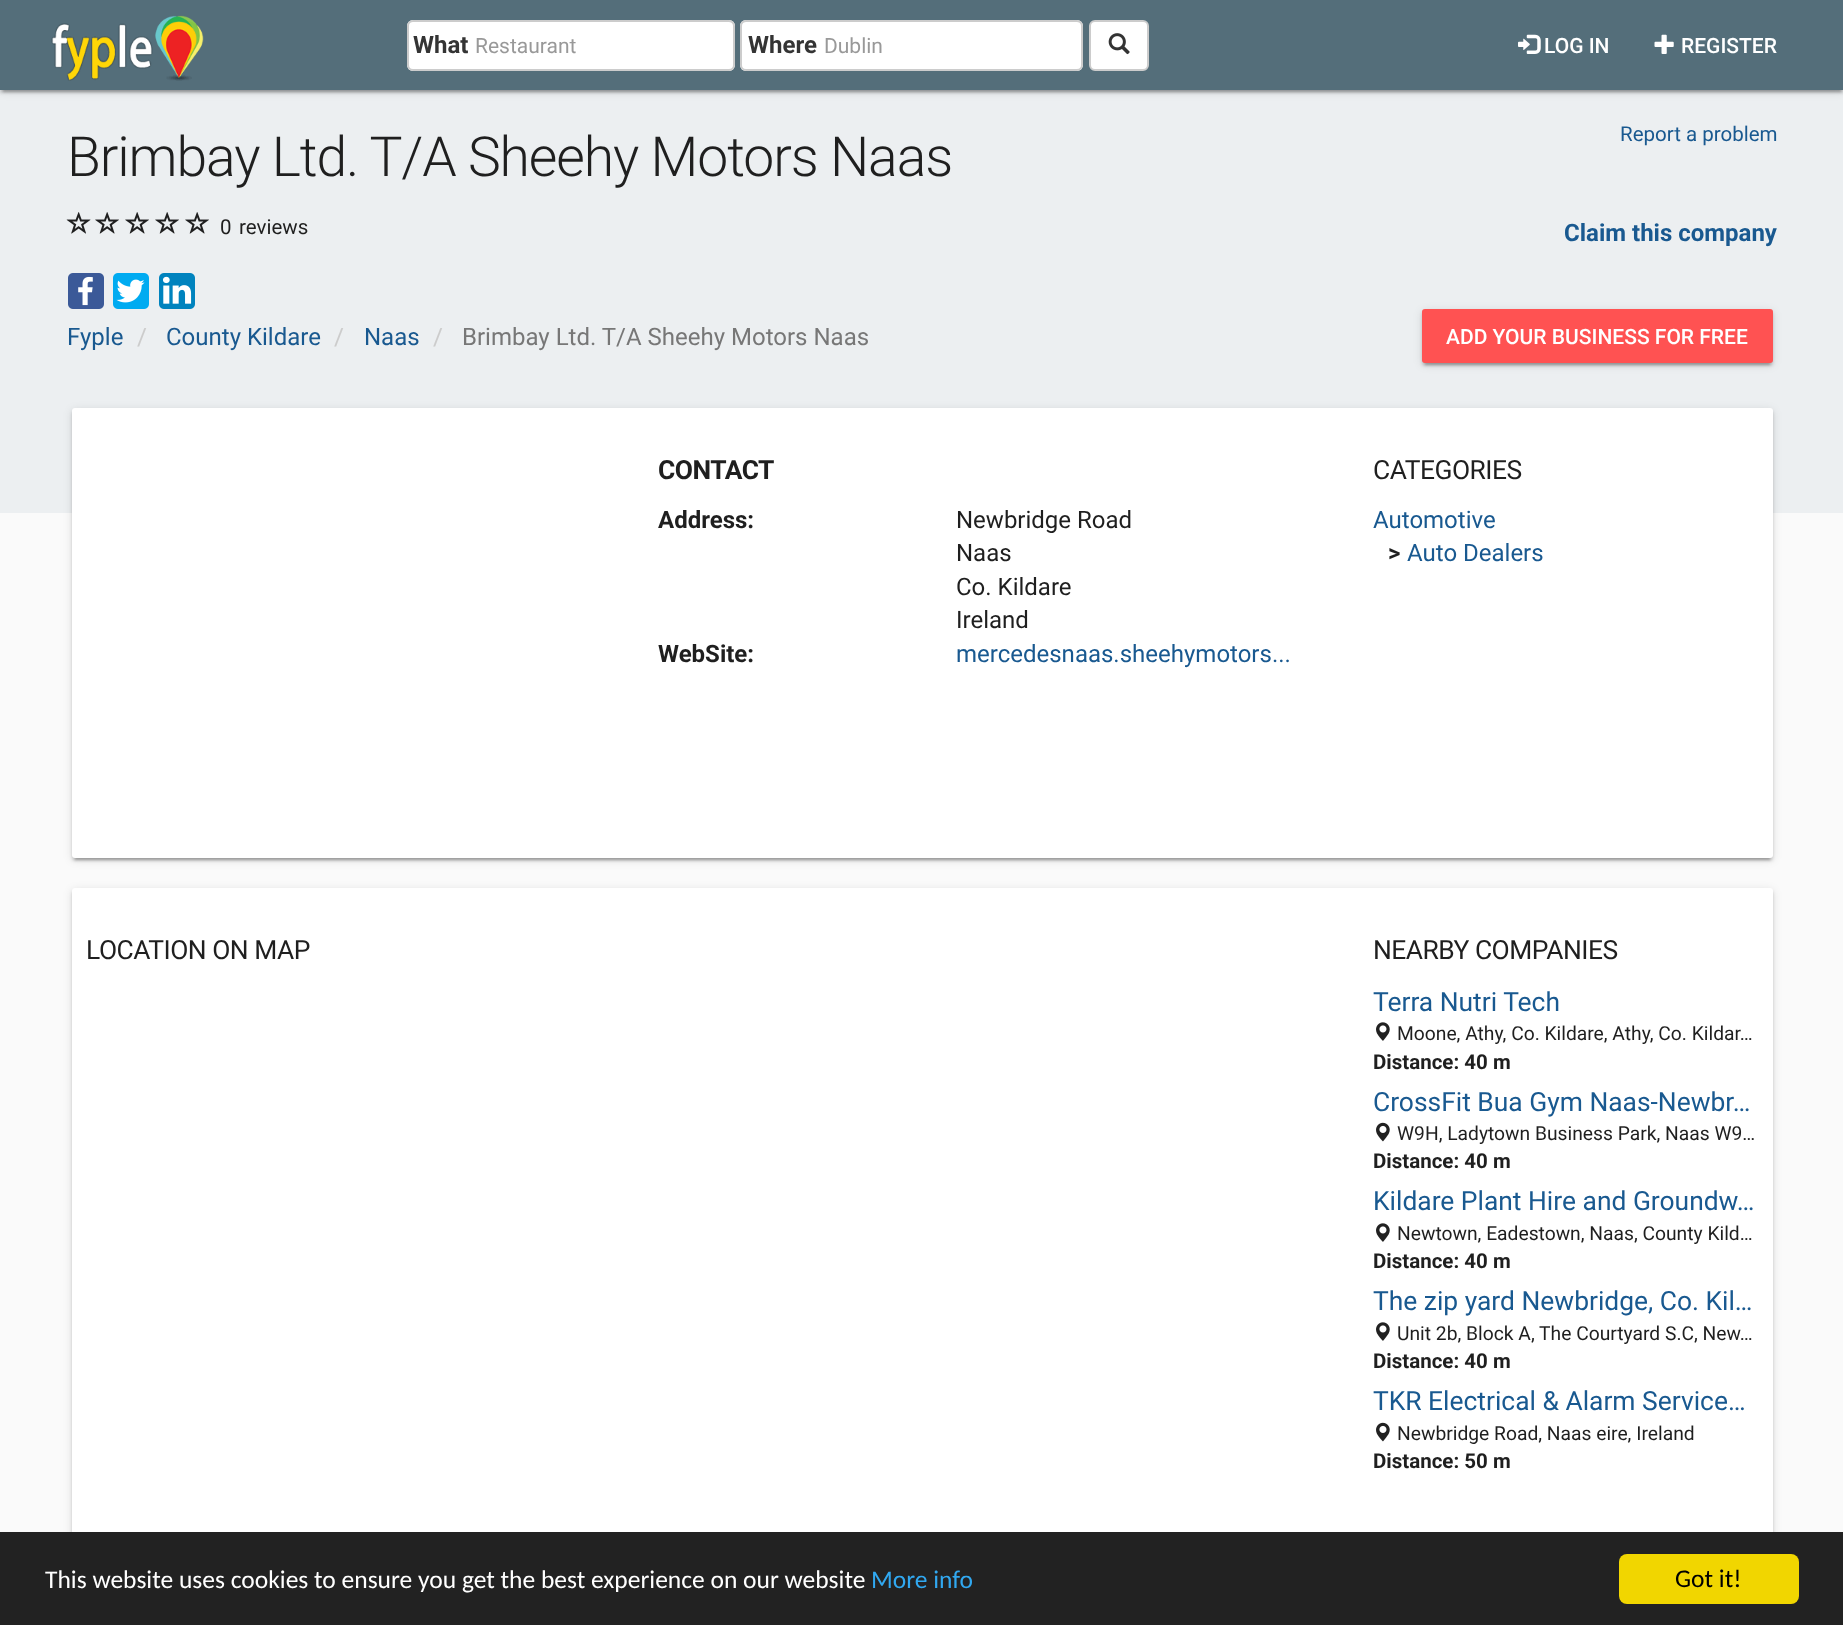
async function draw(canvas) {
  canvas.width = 1843
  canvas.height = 1625
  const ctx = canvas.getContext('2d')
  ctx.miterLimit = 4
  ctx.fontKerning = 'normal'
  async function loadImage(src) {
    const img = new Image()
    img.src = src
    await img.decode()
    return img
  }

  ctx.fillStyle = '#fafafa'
  ctx.fillRect(0, 0, 1843, 1625)
  ctx.fillStyle = '#eceff1'
  ctx.fillRect(0, 90, 1843, 423)
  ctx.fillStyle = '#0000001f'
  ctx.filter = 'blur(4px)'
  ctx.beginPath()
  ctx.rect(0, 2, 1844, 90)
  ctx.fill()
  ctx.filter = 'none'
  ctx.fillStyle = '#00000033'
  ctx.filter = 'blur(1px)'
  ctx.beginPath()
  ctx.rect(3, 8, 1838, 84)
  ctx.fill()
  ctx.filter = 'none'
  ctx.fillStyle = '#00000024'
  ctx.filter = 'blur(1.5px)'
  ctx.beginPath()
  ctx.rect(0, 3, 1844, 90)
  ctx.fill()
  ctx.filter = 'none'
  ctx.fillStyle = '#546e7a'
  ctx.fillRect(0, 0, 1843, 90)
  ctx.drawImage(await loadImage('image0.png'), 51, 15, 153, 66)
  ctx.fillStyle = '#fff'
  ctx.beginPath()
  ctx.roundRect(407, 20, 328, 51, 6)
  ctx.fill()
  ctx.fillStyle = '#ececec'
  ctx.beginPath()
  ctx.moveTo(412, 22)
  ctx.lineTo(729, 22)
  ctx.bezierCurveTo(731, 22, 734, 25, 734, 27)
  ctx.bezierCurveTo(734, 24, 732, 21, 729, 21)
  ctx.lineTo(413, 21)
  ctx.bezierCurveTo(410, 21, 408, 24, 408, 27)
  ctx.bezierCurveTo(408, 25, 410, 22, 412, 22)
  ctx.closePath()
  ctx.fill()
  ctx.beginPath()
  ctx.roundRect(408, 21, 326, 49, 5)
  ctx.strokeStyle = '#ccc'
  ctx.lineWidth = 2
  ctx.stroke()
  ctx.font = 'bold 24px Roboto'
  ctx.fillStyle = '#343434'
  ctx.fillText('What', 413, 53)
  ctx.font = '21px Roboto'
  ctx.fillStyle = '#999'
  ctx.fillText('Restaurant', 475, 53)
  ctx.fillStyle = '#fff'
  ctx.beginPath()
  ctx.roundRect(740, 20, 343, 51, 6)
  ctx.fill()
  ctx.fillStyle = '#ececec'
  ctx.beginPath()
  ctx.moveTo(746, 22)
  ctx.lineTo(1077, 22)
  ctx.bezierCurveTo(1079, 22, 1082, 25, 1082, 27)
  ctx.bezierCurveTo(1082, 24, 1080, 21, 1077, 21)
  ctx.lineTo(746, 21)
  ctx.bezierCurveTo(743, 21, 741, 24, 741, 27)
  ctx.bezierCurveTo(741, 25, 743, 22, 746, 22)
  ctx.closePath()
  ctx.fill()
  ctx.beginPath()
  ctx.roundRect(741, 21, 341, 49, 5)
  ctx.stroke()
  ctx.font = 'bold 24px Roboto'
  ctx.fillStyle = '#343434'
  ctx.fillText('Where', 748, 53)
  ctx.font = '21px Roboto'
  ctx.fillStyle = '#999'
  ctx.fillText('Dublin', 824, 53)
  ctx.fillStyle = '#fff'
  ctx.beginPath()
  ctx.roundRect(1090, 21, 58, 49, 5)
  ctx.fill()
  ctx.stroke()
  ctx.drawImage(await loadImage('image1.png'), 1108, 33, 22, 22)
  ctx.drawImage(await loadImage('image2.png'), 1518, 34, 23, 20)
  ctx.font = '500 21px Roboto'
  ctx.fillText('LOG IN', 1544, 53)
  ctx.drawImage(await loadImage('image3.png'), 1654, 34, 20, 20)
  ctx.fillText('REGISTER', 1681, 53)
  ctx.letterSpacing = '-1.1px'
  ctx.font = '300 55.25px Roboto'
  ctx.fillStyle = '#1f1f1f'
  ctx.fillText('Brimbay Ltd. T/A Sheehy Motors Naas', 67, 176)
  ctx.letterSpacing = '0px'
  ctx.font = '20.5px Roboto'
  ctx.fillStyle = '#195990'
  ctx.fillText('Report a problem', 1620, 141)
  ctx.drawImage(await loadImage('image4.png'), 66, 212, 25, 22)
  ctx.drawImage(await loadImage('image5.png'), 95, 212, 24, 22)
  ctx.drawImage(await loadImage('image5.png'), 125, 212, 24, 22)
  ctx.drawImage(await loadImage('image5.png'), 155, 212, 24, 22)
  ctx.drawImage(await loadImage('image5.png'), 185, 212, 24, 22)
  ctx.fillStyle = '#1f1f1f'
  ctx.fillText('0', 220, 234)
  ctx.fillText('reviews', 239, 234)
  ctx.font = 'bold 24px Roboto'
  ctx.fillStyle = '#195990'
  ctx.fillText('Claim this company', 1564, 241)
  ctx.drawImage(await loadImage('image6.png'), 68, 273, 36, 36)
  ctx.drawImage(await loadImage('image7.png'), 113, 273, 36, 36)
  ctx.drawImage(await loadImage('image8.png'), 159, 273, 36, 36)
  ctx.font = '24px Roboto'
  ctx.fillText('Fyple', 67, 345)
  ctx.fillStyle = '#ccc'
  ctx.fillText('/', 137, 345)
  ctx.fillStyle = '#195990'
  ctx.fillText('County Kildare', 166, 345)
  ctx.fillStyle = '#ccc'
  ctx.fillText('/', 334, 345)
  ctx.fillStyle = '#195990'
  ctx.fillText('Naas', 364, 345)
  ctx.fillStyle = '#ccc'
  ctx.fillText('/', 433, 345)
  ctx.fillStyle = '#777'
  ctx.fillText('Brimbay Ltd. T/A Sheehy Motors Naas', 462, 345)
  ctx.fillStyle = '#0000001f'
  ctx.filter = 'blur(4px)'
  ctx.beginPath()
  ctx.roundRect(1422, 311, 351, 54, 3)
  ctx.fill()
  ctx.filter = 'none'
  ctx.fillStyle = '#00000033'
  ctx.filter = 'blur(1px)'
  ctx.beginPath()
  ctx.rect(1425, 317, 345, 48)
  ctx.fill()
  ctx.filter = 'none'
  ctx.fillStyle = '#00000024'
  ctx.filter = 'blur(1.5px)'
  ctx.beginPath()
  ctx.roundRect(1422, 312, 351, 54, 3)
  ctx.fill()
  ctx.filter = 'none'
  ctx.fillStyle = '#ff5252'
  ctx.beginPath()
  ctx.roundRect(1422, 309, 351, 54, 3)
  ctx.fill()
  ctx.font = '500 21px Roboto'
  ctx.fillStyle = '#fff'
  ctx.fillText('ADD YOUR BUSINESS FOR FREE', 1446, 344)
  ctx.fillStyle = '#0000001f'
  ctx.filter = 'blur(4px)'
  ctx.beginPath()
  ctx.roundRect(72, 410, 1701, 450, 3)
  ctx.fill()
  ctx.filter = 'none'
  ctx.fillStyle = '#00000033'
  ctx.filter = 'blur(1px)'
  ctx.beginPath()
  ctx.rect(75, 416, 1695, 444)
  ctx.fill()
  ctx.filter = 'none'
  ctx.fillStyle = '#00000024'
  ctx.filter = 'blur(1.5px)'
  ctx.beginPath()
  ctx.roundRect(72, 411, 1701, 450, 3)
  ctx.fill()
  ctx.filter = 'none'
  ctx.fillStyle = '#fff'
  ctx.beginPath()
  ctx.roundRect(72, 408, 1701, 450, 3)
  ctx.fill()
  ctx.letterSpacing = '-0.5px'
  ctx.font = 'bold 26.4px Roboto'
  ctx.fillStyle = '#1f1f1f'
  ctx.fillText('CONTACT', 658, 479)
  ctx.letterSpacing = '0px'
  ctx.font = 'bold 24px Roboto'
  ctx.fillText('Address:', 658, 528)
  ctx.font = '24px Roboto'
  ctx.fillText('Newbridge Road', 956, 528)
  ctx.fillText('Naas', 956, 561)
  ctx.fillText('Co. Kildare', 956, 595)
  ctx.fillText('Ireland', 956, 628)
  ctx.font = 'bold 24px Roboto'
  ctx.fillText('WebSite:', 658, 662)
  ctx.font = '24px Roboto'
  ctx.fillStyle = '#195990'
  ctx.fillText('mercedesnaas.sheehymotors...', 956, 662)
  ctx.letterSpacing = '-0.5px'
  ctx.font = '26.4px Roboto'
  ctx.fillStyle = '#1f1f1f'
  ctx.fillText('CATEGORIES', 1373, 479)
  ctx.letterSpacing = '0px'
  ctx.font = '24px Roboto'
  ctx.fillStyle = '#195990'
  ctx.fillText('Automotive', 1373, 528)
  ctx.font = 'bold 24px Roboto'
  ctx.fillStyle = '#1f1f1f'
  ctx.fillText('>', 1388, 561)
  ctx.font = '24px Roboto'
  ctx.fillStyle = '#195990'
  ctx.fillText('Auto Dealers', 1407, 561)
  ctx.fillStyle = '#0000001f'
  ctx.filter = 'blur(4px)'
  ctx.beginPath()
  ctx.roundRect(72, 890, 1701, 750, 3)
  ctx.fill()
  ctx.filter = 'none'
  ctx.fillStyle = '#00000024'
  ctx.filter = 'blur(1.5px)'
  ctx.beginPath()
  ctx.roundRect(72, 891, 1701, 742, 3)
  ctx.fill()
  ctx.filter = 'none'
  ctx.fillStyle = '#fff'
  ctx.beginPath()
  ctx.roundRect(72, 888, 1701, 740, 3)
  ctx.fill()
  ctx.letterSpacing = '-0.5px'
  ctx.font = '26.4px Roboto'
  ctx.fillStyle = '#1f1f1f'
  ctx.fillText('LOCATION ON MAP', 86, 959)
  ctx.fillText('NEARBY COMPANIES', 1373, 959)
  ctx.letterSpacing = '0px'
  ctx.fillStyle = '#195990'
  ctx.fillText('Terra Nutri Tech', 1373, 1011)
  ctx.drawImage(await loadImage('image9.png'), 1376, 1022, 14, 19)
  ctx.font = '19.25px Roboto'
  ctx.fillStyle = '#1f1f1f'
  ctx.fillText('Moone, Athy, Co. Kildare, Athy, Co. Kildar…', 1397, 1040)
  ctx.font = 'bold 20.5px Roboto'
  ctx.fillText('Distance: 40 m', 1373, 1069)
  ctx.font = '26.4px Roboto'
  ctx.fillStyle = '#195990'
  ctx.fillText('CrossFit Bua Gym Naas-Newbr…', 1373, 1111)
  ctx.drawImage(await loadImage('image10.png'), 1376, 1122, 14, 20)
  ctx.font = '19.25px Roboto'
  ctx.fillStyle = '#1f1f1f'
  ctx.fillText('W9H, Ladytown Business Park, Naas W9…', 1397, 1140)
  ctx.font = 'bold 20.5px Roboto'
  ctx.fillText('Distance: 40 m', 1373, 1168)
  ctx.font = '26.4px Roboto'
  ctx.fillStyle = '#195990'
  ctx.fillText('Kildare Plant Hire and Groundw…', 1373, 1210)
  ctx.drawImage(await loadImage('image9.png'), 1376, 1223, 14, 19)
  ctx.font = '19.25px Roboto'
  ctx.fillStyle = '#1f1f1f'
  ctx.fillText('Newtown, Eadestown, Naas, County Kild…', 1397, 1240)
  ctx.font = 'bold 20.5px Roboto'
  ctx.fillText('Distance: 40 m', 1373, 1268)
  ctx.font = '26.4px Roboto'
  ctx.fillStyle = '#195990'
  ctx.fillText('The zip yard Newbridge, Co. Kil…', 1373, 1310)
  ctx.drawImage(await loadImage('image9.png'), 1376, 1322, 14, 19)
  ctx.font = '19.25px Roboto'
  ctx.fillStyle = '#1f1f1f'
  ctx.fillText('Unit 2b, Block A, The Courtyard S.C, New…', 1397, 1340)
  ctx.font = 'bold 20.5px Roboto'
  ctx.fillText('Distance: 40 m', 1373, 1368)
  ctx.font = '26.4px Roboto'
  ctx.fillStyle = '#195990'
  ctx.fillText('TKR Electrical & Alarm Service…', 1373, 1410)
  ctx.drawImage(await loadImage('image10.png'), 1376, 1422, 14, 20)
  ctx.font = '19.25px Roboto'
  ctx.fillStyle = '#1f1f1f'
  ctx.fillText('Newbridge Road, Naas eire, Ireland', 1397, 1440)
  ctx.font = 'bold 20.5px Roboto'
  ctx.fillText('Distance: 50 m', 1373, 1468)
  ctx.fillStyle = '#222'
  ctx.fillRect(0, 1532, 1843, 93)
  ctx.font = '25.5px Carlito'
  ctx.fillStyle = '#fff'
  ctx.fillText('This website uses cookies to ensure you get the best experience on our website', 45, 1588)
  ctx.fillStyle = '#31a8f0'
  ctx.fillText('More info', 871, 1588)
  ctx.fillStyle = '#f1d600'
  ctx.beginPath()
  ctx.roundRect(1619, 1554, 180, 50, 8)
  ctx.fill()
  ctx.fillStyle = '#000'
  ctx.fillText('Got it!', 1675, 1587)
}

draw(document.querySelector('canvas'))
